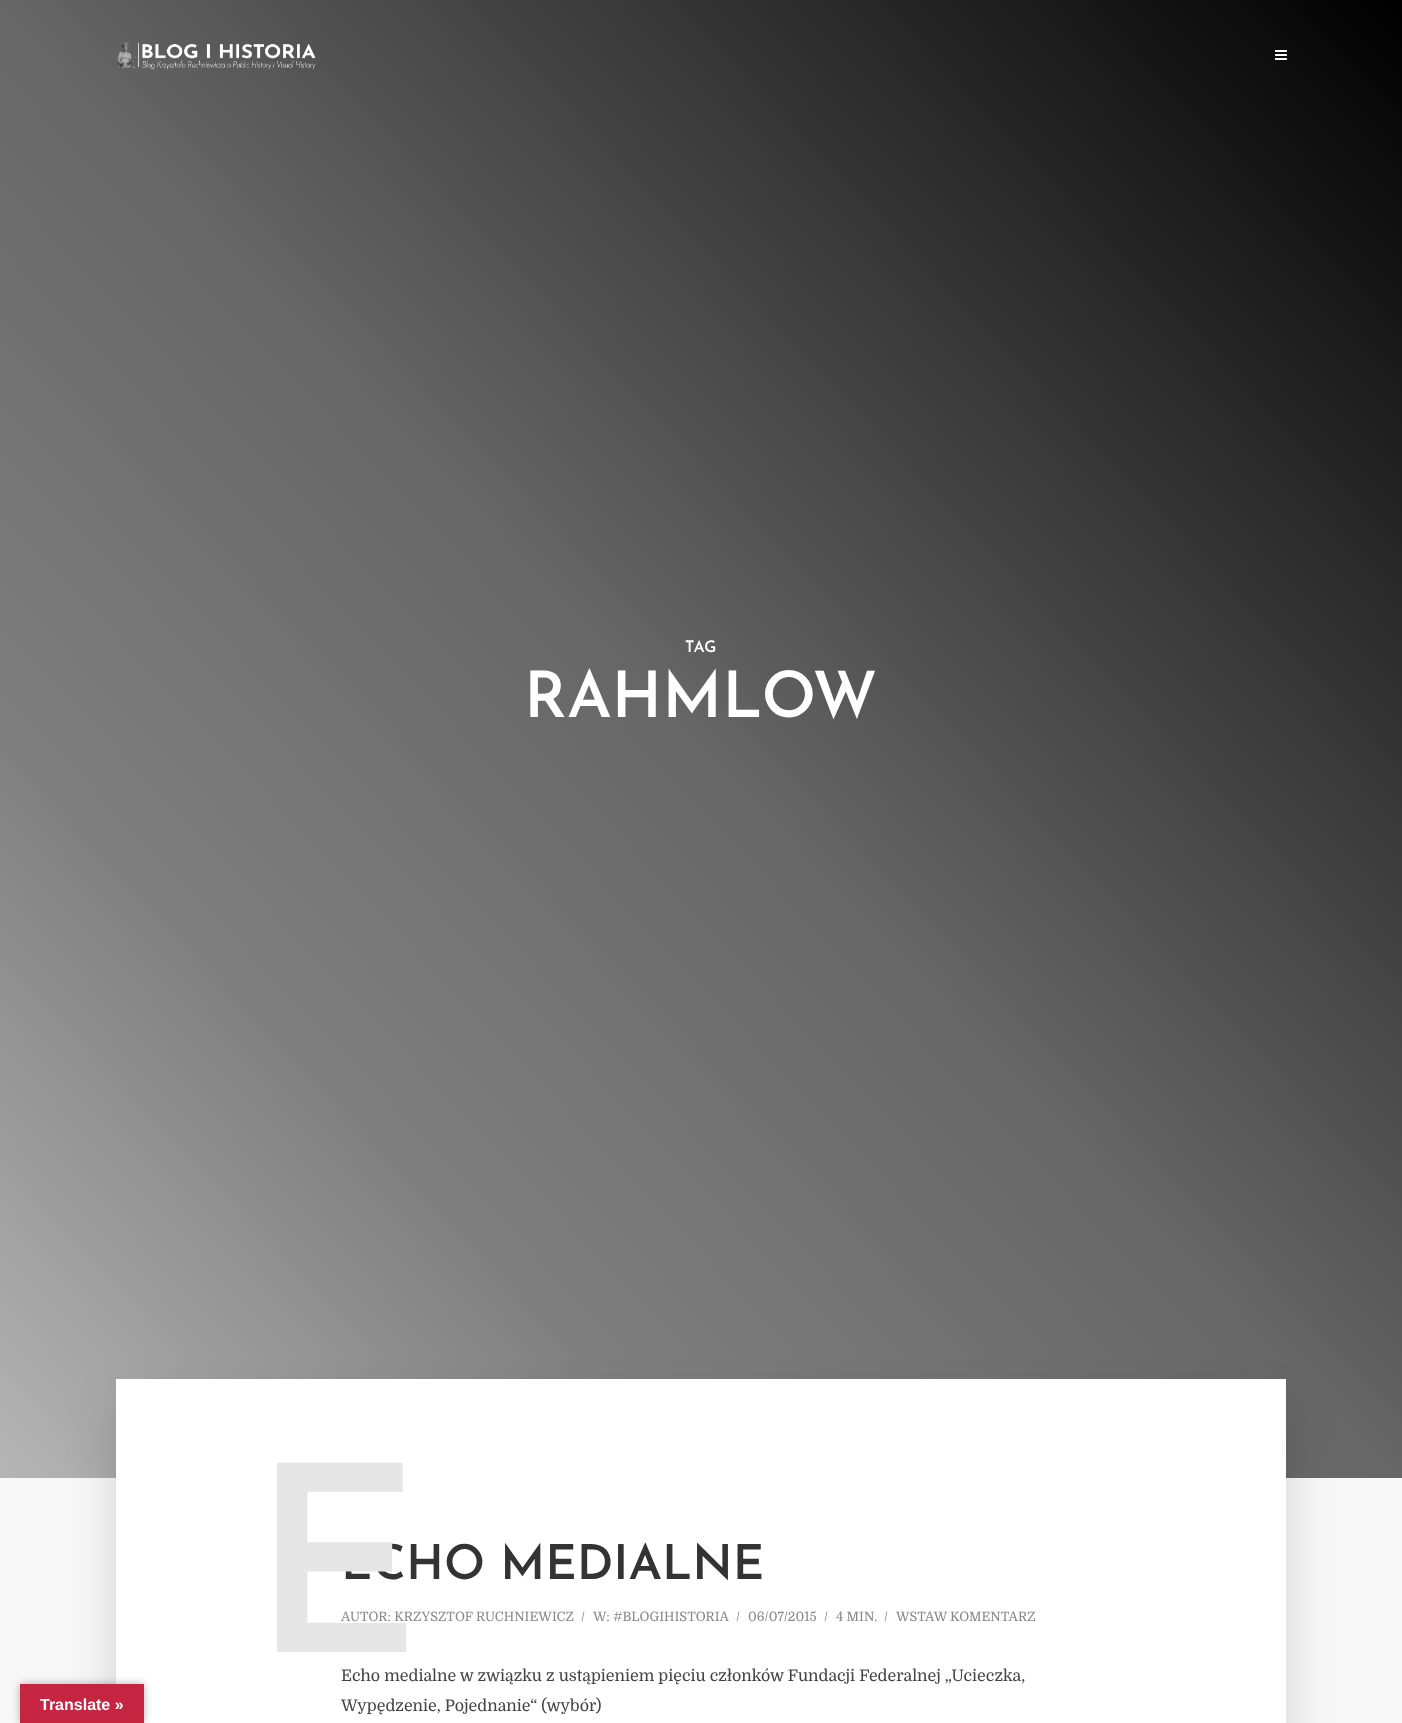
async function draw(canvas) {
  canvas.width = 1402
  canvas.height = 1723
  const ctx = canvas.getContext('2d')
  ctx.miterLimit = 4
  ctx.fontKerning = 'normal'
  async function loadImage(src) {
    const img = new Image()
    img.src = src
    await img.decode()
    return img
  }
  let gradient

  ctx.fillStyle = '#f8f8f8'
  ctx.fillRect(0, 0, 1402, 1723)
  gradient = ctx.createLinearGradient(-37, 1439, 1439, 39)
  gradient.addColorStop(0, '#b5b5b5')
  gradient.addColorStop(0.25, '#7f7f7f')
  gradient.addColorStop(0.5, '#666')
  gradient.addColorStop(0.75, '#333')
  gradient.addColorStop(1, '#000')
  ctx.fillStyle = gradient
  ctx.fillRect(0, 0, 1402, 1478)
  ctx.drawImage(await loadImage('image0.png'), 117, 42, 199, 28)
  ctx.drawImage(await loadImage('image1.png'), 1275, 50, 12, 10)
  ctx.font = '600 16px Josefin Sans'
  ctx.fillStyle = '#fff'
  ctx.fillText('TAG', 685, 652)
  ctx.font = '600 64px Josefin Sans'
  ctx.fillText('RAHMLOW', 524, 717)
  ctx.fillStyle = '#01010126'
  ctx.filter = 'blur(25px)'
  ctx.beginPath()
  ctx.rect(116, 1409, 1170, 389)
  ctx.fill()
  ctx.filter = 'none'
  ctx.fillStyle = '#fff'
  ctx.fillRect(116, 1379, 1170, 344)
  ctx.fillStyle = '#0000004d'
  ctx.filter = 'blur(4.5px)'
  ctx.beginPath()
  ctx.rect(20, 1684, 124, 39)
  ctx.fill()
  ctx.filter = 'none'
  ctx.fillStyle = '#c62541'
  ctx.fillRect(20, 1684, 124, 39)
  ctx.font = 'bold 16px Liberation Sans'
  ctx.fillStyle = '#fff'
  ctx.fillText('Translate »', 40, 1710)
  ctx.font = '600 48px Josefin Sans'
  ctx.fillStyle = '#333'
  ctx.fillText('ECHO MEDIALNE', 341, 1579)
  ctx.font = '13px Domine'
  ctx.fillStyle = '#888'
  ctx.fillText('AUTOR: KRZYSZTOF RUCHNIEWICZ', 341, 1621)
  ctx.font = '600 260px Josefin Sans'
  ctx.fillStyle = '#e6e6e6'
  ctx.fillText('E', 251, 1652)
  ctx.font = '13px Domine'
  ctx.fillStyle = '#888'
  ctx.fillText('/', 581, 1621)
  ctx.fillText('W: #BLOGIHISTORIA', 593, 1621)
  ctx.fillText('/', 736, 1621)
  ctx.fillText('06/07/2015', 748, 1621)
  ctx.fillText('/', 824, 1621)
  ctx.fillText('4 MIN.', 836, 1621)
  ctx.fillText('/', 884, 1621)
  ctx.fillText('WSTAW KOMENTARZ', 896, 1621)
  ctx.font = '16px Domine'
  ctx.fillStyle = '#444'
  ctx.fillText('Echo medialne w związku z ustąpieniem pięciu członków Fundacji Federalnej „Ucieczka,', 341, 1681)
  ctx.fillText('Wypędzenie, Pojednanie“ (wybór)', 341, 1711)
}

draw(document.querySelector('canvas'))
